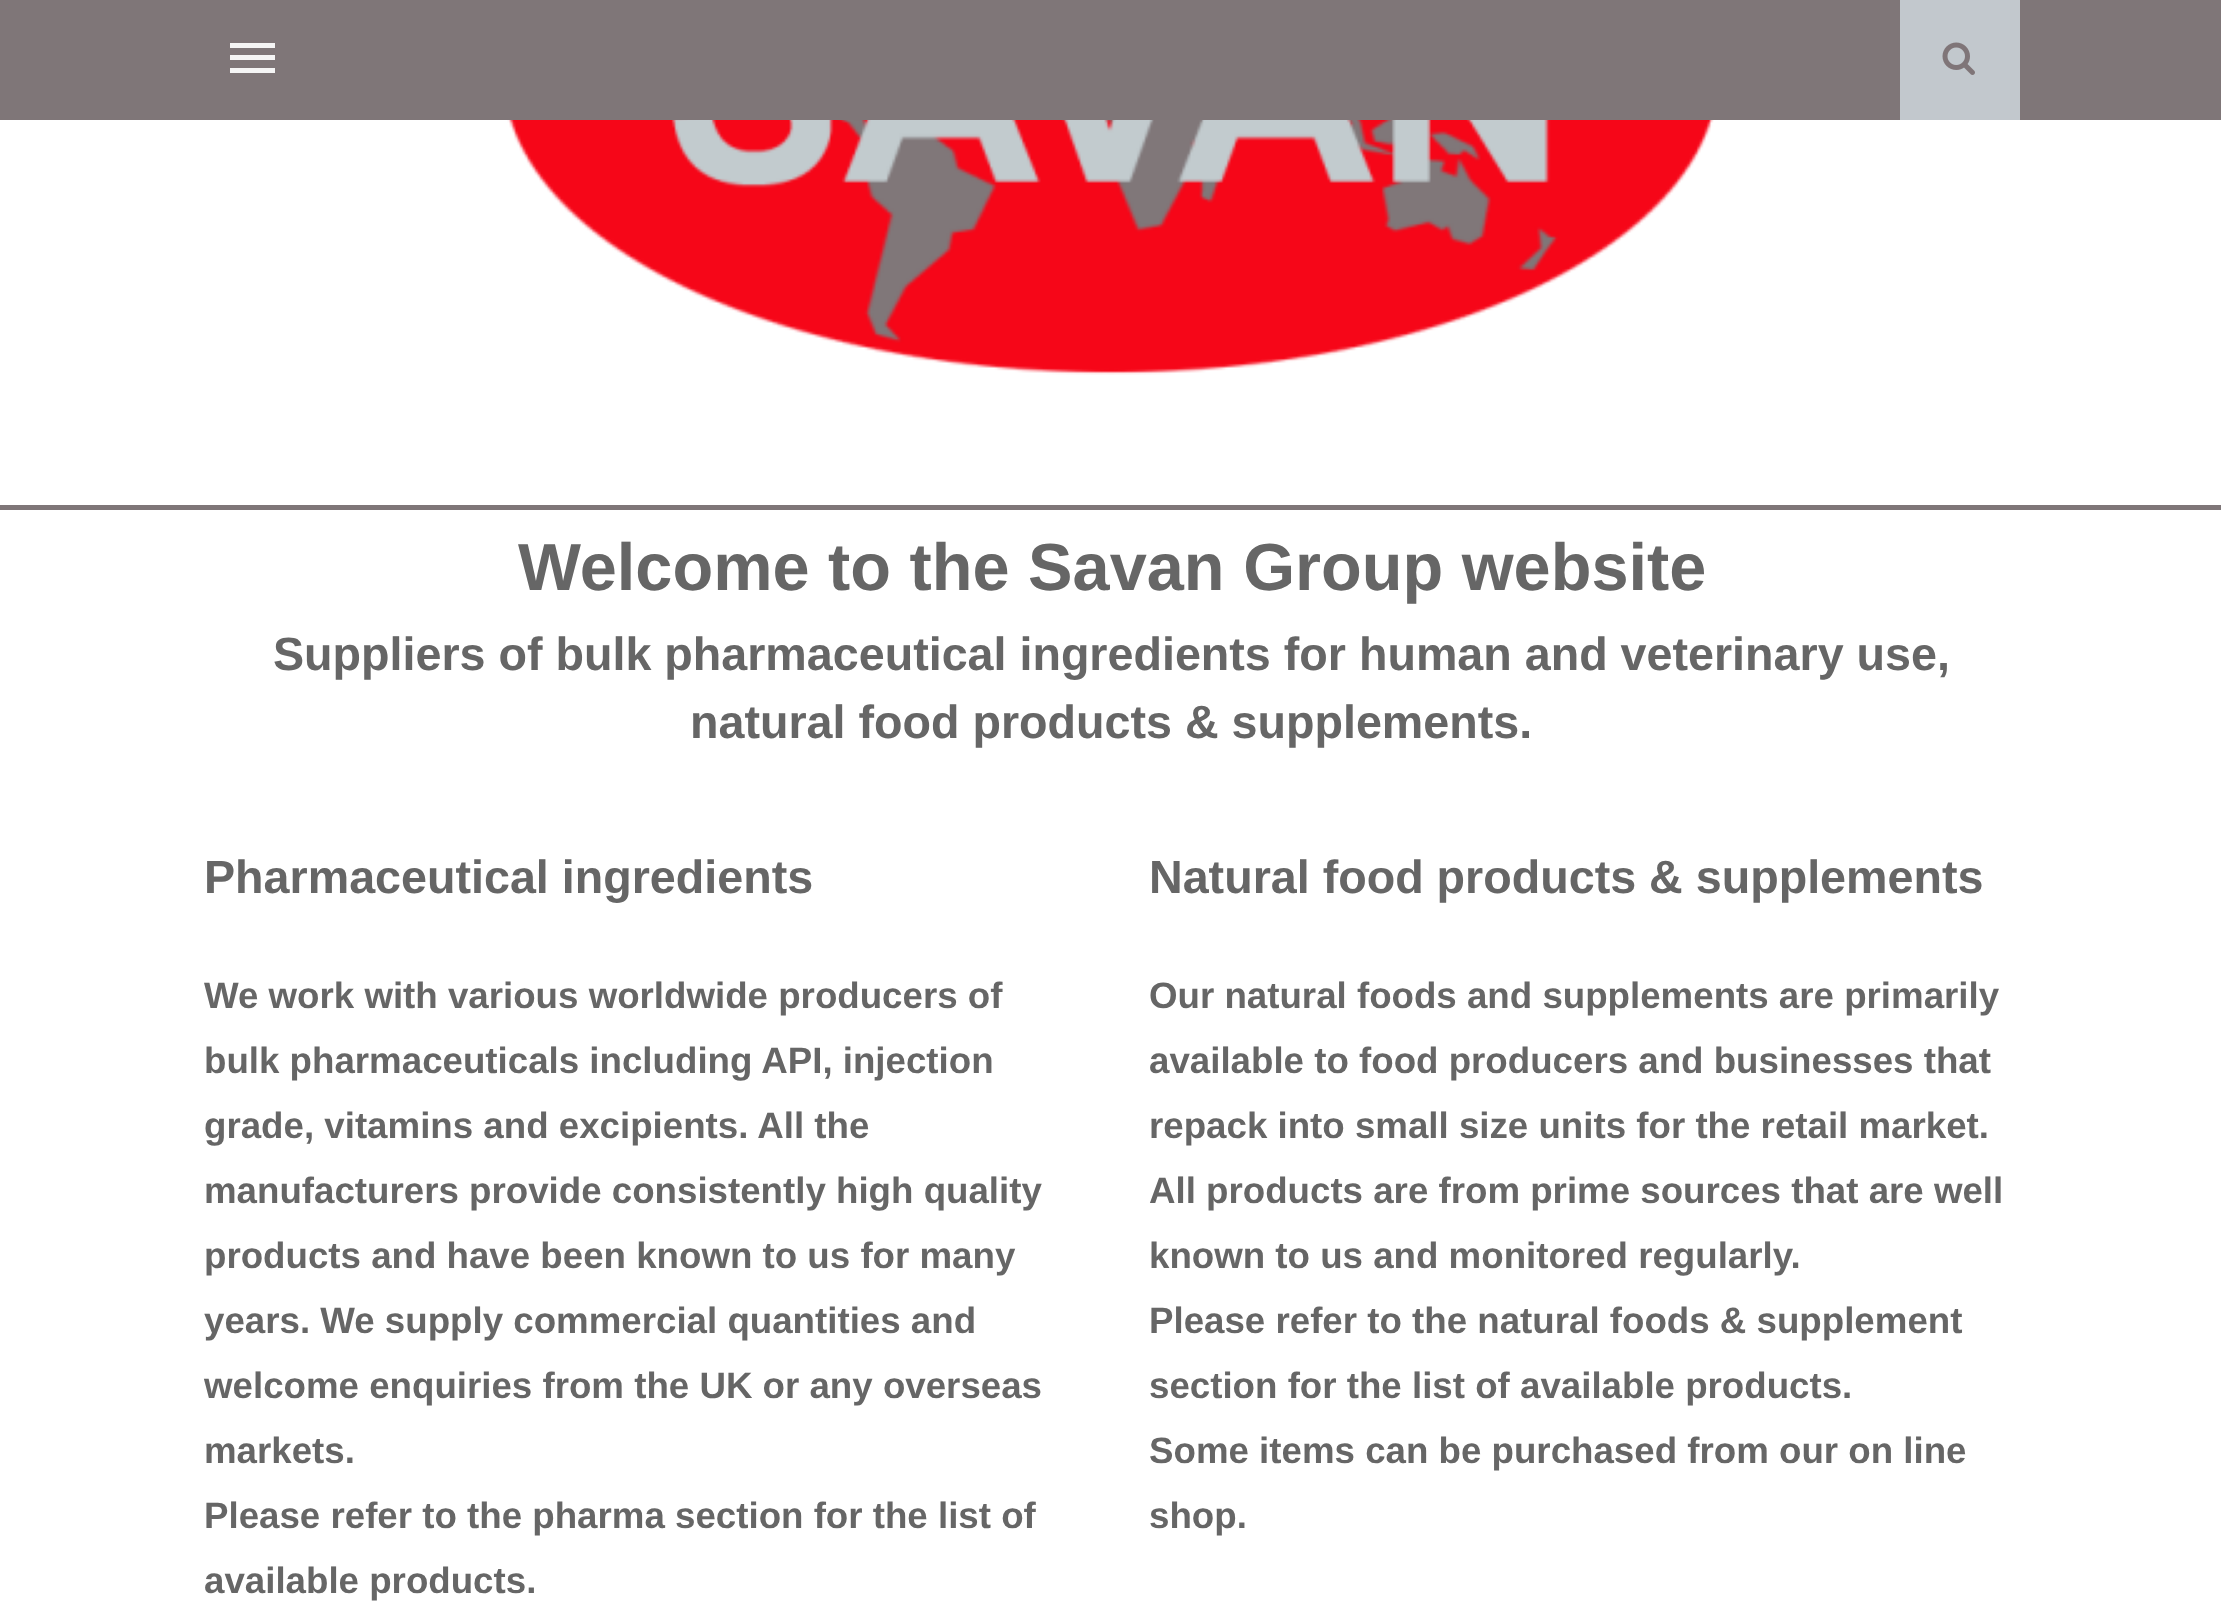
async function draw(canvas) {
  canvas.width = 2221
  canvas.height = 1610
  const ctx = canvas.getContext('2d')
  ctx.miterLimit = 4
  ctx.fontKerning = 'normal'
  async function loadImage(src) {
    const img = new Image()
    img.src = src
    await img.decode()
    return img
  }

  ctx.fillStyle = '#fff'
  ctx.fillRect(0, 0, 2221, 1610)
  ctx.fillStyle = '#7f7678'
  ctx.fillRect(0, 0, 2221, 120)
  ctx.fillStyle = '#f5f5f5'
  ctx.fillRect(230, 43, 45, 5)
  ctx.fillRect(230, 55, 45, 5)
  ctx.fillRect(230, 68, 45, 5)
  ctx.fillStyle = '#c2c8cd'
  ctx.fillRect(1900, 0, 120, 120)
  ctx.drawImage(await loadImage('image0.png'), 1942, 42, 33, 33)
  ctx.fillStyle = '#7f7678'
  ctx.fillRect(0, 505, 2221, 5)
  ctx.drawImage(await loadImage('image1.png'), 507, 120, 1207, 255)
  ctx.font = 'bold 66.7px Liberation Sans'
  ctx.fillStyle = '#666'
  ctx.fillText('Welcome to the Savan Group website', 518, 590)
  ctx.font = 'bold 46.65px Liberation Sans'
  ctx.fillText('Suppliers of bulk pharmaceutical ingredients for human and veterinary use,', 273, 670)
  ctx.fillText('natural food products & supplements.', 690, 738)
  ctx.fillText('Pharmaceutical ingredients', 204, 893)
  ctx.font = 'bold 36.7px Liberation Sans'
  ctx.fillText('We work with various worldwide producers of', 204, 1008)
  ctx.fillText('bulk pharmaceuticals including API, injection', 204, 1073)
  ctx.fillText('grade, vitamins and excipients. All the', 204, 1138)
  ctx.fillText('manufacturers provide consistently high quality', 204, 1203)
  ctx.fillText('products and have been known to us for many', 204, 1268)
  ctx.fillText('years. We supply commercial quantities and', 204, 1333)
  ctx.fillText('welcome enquiries from the UK or any overseas', 204, 1398)
  ctx.fillText('markets.', 204, 1463)
  ctx.fillText('Please refer to the pharma section for the list of', 204, 1528)
  ctx.fillText('available products.', 204, 1593)
  ctx.font = 'bold 46.65px Liberation Sans'
  ctx.fillText('Natural food products & supplements', 1149, 893)
  ctx.font = 'bold 36.7px Liberation Sans'
  ctx.fillText('Our natural foods and supplements are primarily', 1149, 1008)
  ctx.fillText('available to food producers and businesses that', 1149, 1073)
  ctx.fillText('repack into small size units for the retail market.', 1149, 1138)
  ctx.fillText('All products are from prime sources that are well', 1149, 1203)
  ctx.fillText('known to us and monitored regularly.', 1149, 1268)
  ctx.fillText('Please refer to the natural foods & supplement', 1149, 1333)
  ctx.fillText('section for the list of available products.', 1149, 1398)
  ctx.fillText('Some items can be purchased from our on line', 1149, 1463)
  ctx.fillText('shop.', 1149, 1528)
}

draw(document.querySelector('canvas'))
